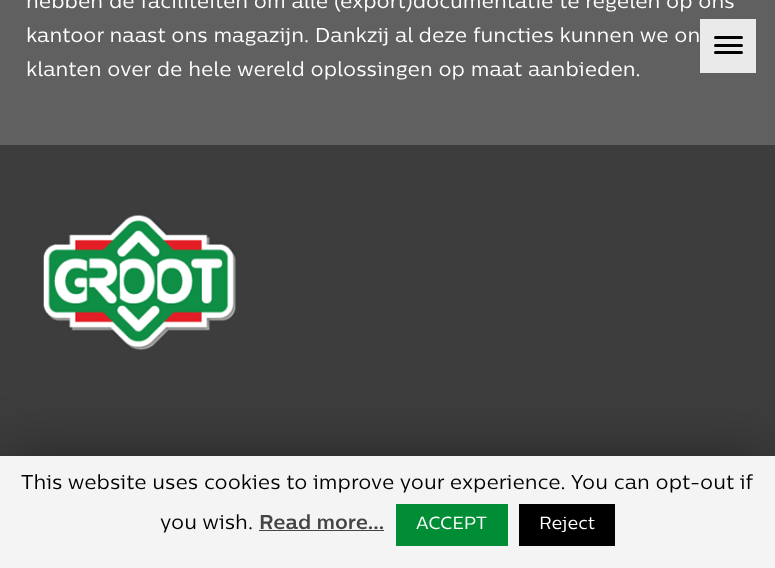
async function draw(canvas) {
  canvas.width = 775
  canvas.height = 568
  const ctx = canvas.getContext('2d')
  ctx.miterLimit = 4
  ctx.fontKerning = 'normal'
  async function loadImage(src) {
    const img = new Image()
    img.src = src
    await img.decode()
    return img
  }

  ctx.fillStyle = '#606060'
  ctx.fillRect(0, 0, 775, 568)
  ctx.font = '20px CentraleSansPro'
  ctx.fillStyle = '#fff'
  ctx.fillText('hebben de faciliteiten om alle (export)documentatie te regelen op ons', 26, 8)
  ctx.fillText('kantoor naast ons magazijn. Dankzij al deze functies kunnen we on', 26, 42)
  ctx.fillText('klanten over de hele wereld oplossingen op maat aanbieden.', 26, 76)
  ctx.fillStyle = '#3d3d3e'
  ctx.fillRect(0, 145, 775, 311)
  ctx.drawImage(await loadImage('image0.png'), 43, 214, 193, 136)
  ctx.fillStyle = '#eaeaeb'
  ctx.fillRect(700, 19, 56, 54)
  ctx.fillStyle = '#000'
  ctx.beginPath()
  ctx.roundRect(714, 44, 29, 3, 1.5)
  ctx.fill()
  ctx.beginPath()
  ctx.roundRect(714, 36, 29, 3, 1.5)
  ctx.fill()
  ctx.beginPath()
  ctx.roundRect(714, 51, 29, 3, 1.5)
  ctx.fill()
  ctx.fillStyle = '#00000080'
  ctx.filter = 'blur(31px)'
  ctx.beginPath()
  ctx.rect(0, 463, 775, 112)
  ctx.fill()
  ctx.filter = 'none'
  ctx.fillStyle = '#f4f4f4'
  ctx.fillRect(0, 456, 775, 112)
  ctx.fillStyle = '#000'
  ctx.fillText('This website uses cookies to improve your experience. You can opt-out if', 21, 489)
  ctx.fillText('you wish.', 160, 529)
  ctx.font = 'bold 20px CentraleSansPro'
  ctx.fillStyle = '#444'
  ctx.fillText('Read more...', 259, 529)
  ctx.fillRect(259, 530, 125, 1)
  ctx.fillStyle = '#008d35'
  ctx.fillRect(396, 504, 112, 42)
  ctx.font = '17.5px CentraleSansPro'
  ctx.fillStyle = '#fff'
  ctx.fillText('ACCEPT', 416, 529)
  ctx.fillStyle = '#000'
  ctx.fillRect(519, 504, 96, 42)
  ctx.fillStyle = '#fff'
  ctx.fillText('Reject', 539, 529)
}

draw(document.querySelector('canvas'))
